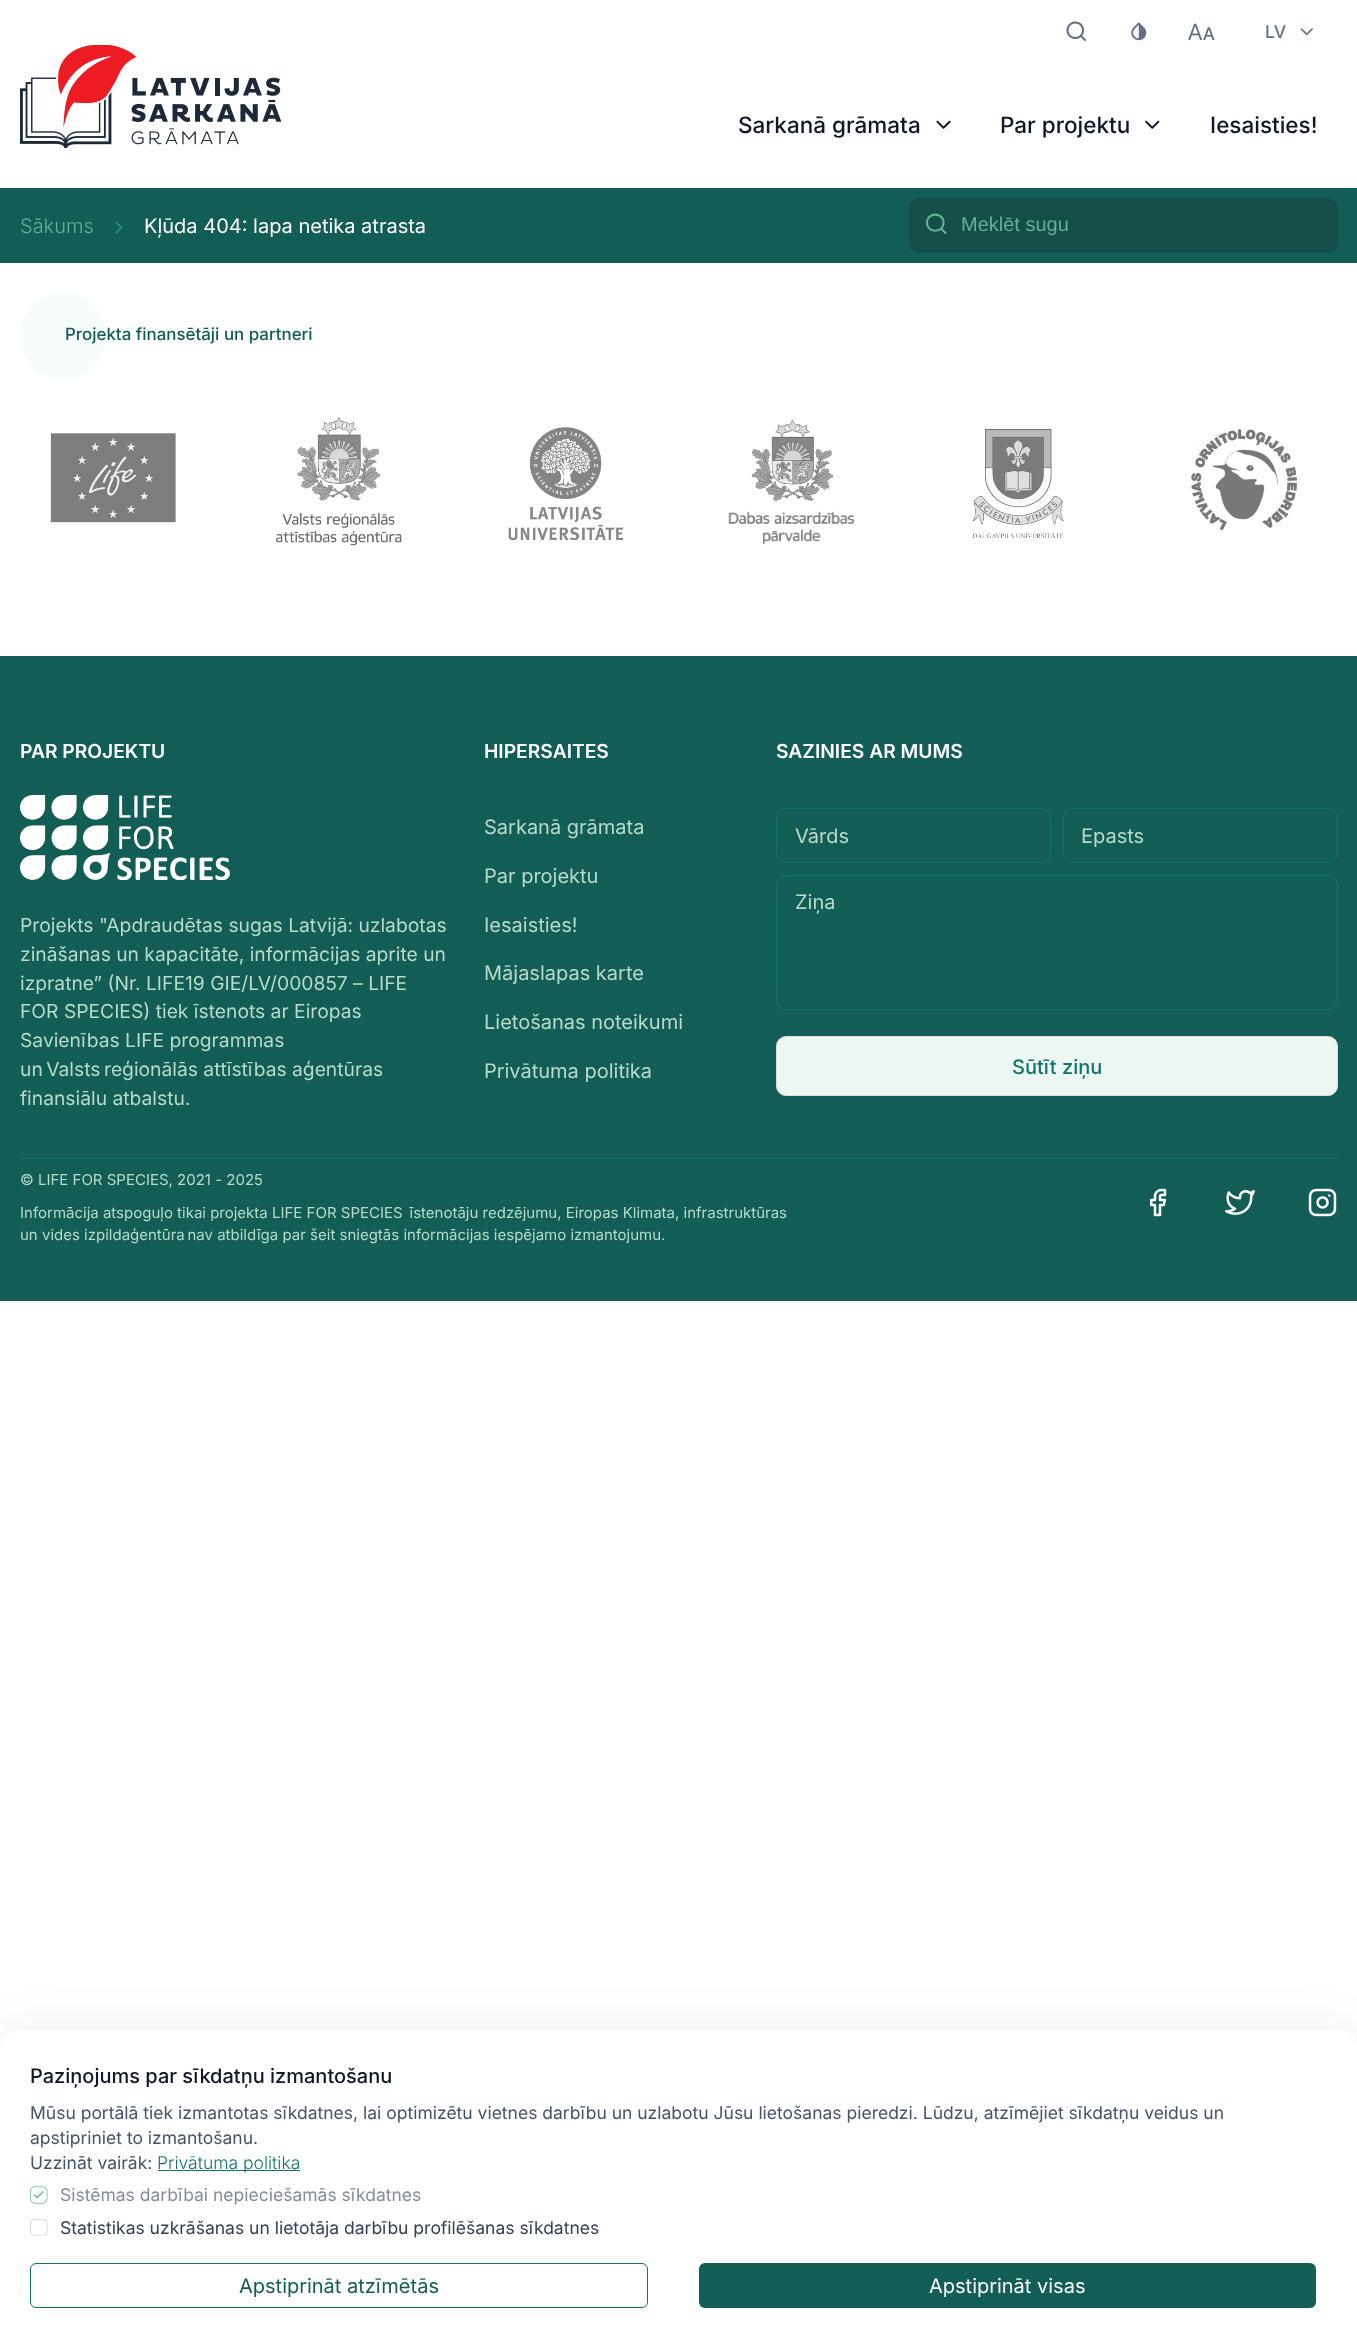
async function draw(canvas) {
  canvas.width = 1357
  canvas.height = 2348
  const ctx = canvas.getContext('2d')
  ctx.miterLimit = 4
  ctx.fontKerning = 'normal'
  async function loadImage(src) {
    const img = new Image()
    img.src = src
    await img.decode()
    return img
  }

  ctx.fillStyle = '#fff'
  ctx.fillRect(0, 0, 1357, 2348)
  ctx.drawImage(await loadImage('image0.png'), 1066, 21, 20, 20)
  ctx.drawImage(await loadImage('image1.png'), 1131, 22, 16, 19)
  ctx.drawImage(await loadImage('image2.png'), 1188, 23, 27, 17)
  ctx.font = '500 17.5px Inter'
  ctx.fillStyle = '#667085'
  ctx.fillText('LV', 1265, 38)
  ctx.drawImage(await loadImage('image3.png'), 1300, 28, 13, 8)
  ctx.drawImage(await loadImage('image4.png'), 20, 45, 261, 103)
  ctx.font = '500 22.5px Inter'
  ctx.fillStyle = '#101828'
  ctx.fillText('Sarkanā grāmata', 738, 133)
  ctx.drawImage(await loadImage('image5.png'), 936, 120, 15, 9)
  ctx.fillText('Par projektu', 1000, 133)
  ctx.drawImage(await loadImage('image6.png'), 1145, 120, 15, 9)
  ctx.fillText('Iesaisties!', 1210, 133)
  ctx.fillStyle = '#125d56'
  ctx.fillRect(0, 188, 1357, 75)
  ctx.font = '300 20px Inter'
  ctx.fillStyle = '#63b097'
  ctx.fillText('Sākums', 20, 233)
  ctx.drawImage(await loadImage('image7.png'), 115, 221, 7, 13)
  ctx.font = '20px Inter'
  ctx.fillStyle = '#fff'
  ctx.fillText('Kļūda 404: lapa netika atrasta', 144, 233)
  ctx.fillStyle = '#134e48'
  ctx.beginPath()
  ctx.roundRect(909, 198, 429, 55, 10)
  ctx.fill()
  ctx.beginPath()
  ctx.moveTo(945.5, 233)
  ctx.lineTo(941, 228.5)
  ctx.moveTo(943.5, 222.5)
  ctx.bezierCurveTo(943.5, 233.5, 927, 233.5, 927, 222.5)
  ctx.bezierCurveTo(927, 212, 943.5, 212, 943.5, 222.5)
  ctx.closePath()
  ctx.strokeStyle = '#63b097'
  ctx.lineWidth = 2.1
  ctx.lineCap = 'round'
  ctx.lineJoin = 'round'
  ctx.stroke()
  ctx.font = '20px Liberation Sans'
  ctx.fillStyle = '#63b097'
  ctx.fillText('Meklēt sugu', 961, 231)
  ctx.fillStyle = '#f5fcf9'
  ctx.beginPath()
  ctx.arc(63, 336, 43, 0, 2 * Math.PI)
  ctx.fill()
  ctx.font = '500 16.9px Inter'
  ctx.fillStyle = '#125d56'
  ctx.fillText('Projekta finansētāji un partneri', 65, 340)
  ctx.drawImage(await loadImage('image8.png'), 50, 433, 126, 90)
  ctx.drawImage(await loadImage('image9.png'), 276, 417, 126, 129)
  ctx.drawImage(await loadImage('image10.png'), 508, 427, 116, 114)
  ctx.drawImage(await loadImage('image11.png'), 728, 419, 127, 125)
  ctx.drawImage(await loadImage('image12.png'), 972, 429, 92, 109)
  ctx.drawImage(await loadImage('image13.png'), 1191, 429, 107, 102)
  ctx.fillRect(0, 656, 1357, 645)
  ctx.font = '600 19.25px Inter'
  ctx.fillStyle = '#fff'
  ctx.fillText('PAR PROJEKTU', 20, 758)
  ctx.drawImage(await loadImage('image14.png'), 20, 795, 210, 85)
  ctx.font = '19.25px Inter'
  ctx.fillStyle = '#b6dbca'
  ctx.fillText('Projekts "Apdraudētas sugas Latvijā: uzlabotas', 20, 932)
  ctx.fillText('zināšanas un kapacitāte, informācijas aprite un', 20, 961)
  ctx.fillText('izpratne” (Nr. LIFE19 GIE/LV/000857 – LIFE', 20, 990)
  ctx.fillText('FOR SPECIES) tiek īstenots ar Eiropas', 20, 1018)
  ctx.fillText('Savienības LIFE programmas', 20, 1047)
  ctx.fillText('un Valsts reģionālās attīstības aģentūras', 20, 1076)
  ctx.fillText('finansiālu atbalstu.', 20, 1105)
  ctx.font = '600 19.25px Inter'
  ctx.fillStyle = '#fff'
  ctx.fillText('HIPERSAITES', 484, 758)
  ctx.font = '20px Inter'
  ctx.fillStyle = '#b6dbca'
  ctx.fillText('Sarkanā grāmata', 484, 834)
  ctx.fillText('Par projektu', 484, 883)
  ctx.fillText('Iesaisties!', 484, 932)
  ctx.fillText('Mājaslapas karte', 484, 980)
  ctx.fillText('Lietošanas noteikumi', 484, 1029)
  ctx.fillText('Privātuma politika', 484, 1078)
  ctx.font = '600 19.25px Inter'
  ctx.fillStyle = '#fff'
  ctx.fillText('SAZINIES AR MUMS', 776, 758)
  ctx.beginPath()
  ctx.roundRect(776.5, 808.5, 274, 54, 9.5)
  ctx.strokeStyle = '#107569'
  ctx.lineWidth = 1
  ctx.lineJoin = 'miter'
  ctx.stroke()
  ctx.font = '20px Inter'
  ctx.fillStyle = '#b6dbca'
  ctx.fillText('Vārds', 795, 843)
  ctx.beginPath()
  ctx.roundRect(1063.5, 808.5, 274, 54, 9.5)
  ctx.stroke()
  ctx.fillText('Epasts', 1081, 843)
  ctx.beginPath()
  ctx.roundRect(776.5, 875.5, 561, 134, 9.5)
  ctx.stroke()
  ctx.fillText('Ziņa', 795, 909)
  ctx.fillStyle = '#edf7f2'
  ctx.beginPath()
  ctx.roundRect(776.5, 1036.5, 561, 59, 9.5)
  ctx.fill()
  ctx.strokeStyle = '#ddd'
  ctx.stroke()
  ctx.font = '500 20px Inter'
  ctx.fillStyle = '#107569'
  ctx.fillText('Sūtīt ziņu', 1012, 1074)
  ctx.fillRect(20, 1158, 1318, 1)
  ctx.font = '15px Inter'
  ctx.fillStyle = '#b6dbca'
  ctx.fillText('© LIFE FOR SPECIES, 2021 - 2025', 20, 1185)
  ctx.fillText('Informācija atspoguļo tikai projekta LIFE FOR SPECIES  īstenotāju redzējumu, Eiropas Klimata, infrastruktūras', 20, 1218)
  ctx.fillText('un vides izpildaģentūra nav atbildīga par šeit sniegtās informācijas iespējamo izmantojumu.', 20, 1240)
  ctx.drawImage(await loadImage('image15.png'), 1150, 1188, 17, 29)
  ctx.drawImage(await loadImage('image16.png'), 1225, 1190, 30, 25)
  ctx.drawImage(await loadImage('image17.png'), 1308, 1188, 29, 29)
  ctx.fillStyle = '#12524b1a'
  ctx.filter = 'blur(25px)'
  ctx.beginPath()
  ctx.roundRect(0, 2035, 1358, 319, 20)
  ctx.fill()
  ctx.filter = 'none'
  ctx.fillStyle = '#fff'
  ctx.beginPath()
  ctx.moveTo(20, 2030)
  ctx.lineTo(1338, 2030)
  ctx.bezierCurveTo(1349, 2030, 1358, 2039, 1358, 2050)
  ctx.lineTo(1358, 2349)
  ctx.lineTo(0, 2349)
  ctx.lineTo(0, 2050)
  ctx.bezierCurveTo(0, 2039, 9, 2030, 20, 2030)
  ctx.closePath()
  ctx.fill()
  ctx.font = '500 20px Inter'
  ctx.fillStyle = '#101828'
  ctx.fillText('Paziņojums par sīkdatņu izmantošanu', 30, 2083)
  ctx.font = '17.5px Inter'
  ctx.fillStyle = '#475467'
  ctx.fillText('Mūsu portālā tiek izmantotas sīkdatnes, lai optimizētu vietnes darbību un uzlabotu Jūsu lietošanas pieredzi. Lūdzu, atzīmējiet sīkdatņu veidus un', 30, 2119)
  ctx.fillText('apstipriniet to izmantošanu.', 30, 2144)
  ctx.fillText('Uzzināt vairāk:', 30, 2169)
  ctx.fillStyle = '#107569'
  ctx.fillRect(158, 2170, 142, 1)
  ctx.font = '300 17.5px Inter'
  ctx.fillText('Privātuma politika', 157, 2169)
  ctx.drawImage(await loadImage('image18.png'), 30, 2186, 18, 18)
  ctx.font = '17.5px Inter'
  ctx.fillStyle = '#858c98'
  ctx.fillText('Sistēmas darbībai nepieciešamās sīkdatnes', 60, 2201)
  ctx.drawImage(await loadImage('image19.png'), 30, 2219, 18, 17)
  ctx.fillStyle = '#344054'
  ctx.fillText('Statistikas uzkrāšanas un lietotāja darbību profilēšanas sīkdatnes', 60, 2234)
  ctx.beginPath()
  ctx.roundRect(30.5, 2263.5, 617, 44, 5.5)
  ctx.strokeStyle = '#107569'
  ctx.stroke()
  ctx.font = '20px Inter'
  ctx.fillStyle = '#125d56'
  ctx.fillText('Apstiprināt atzīmētās', 239, 2293)
  ctx.beginPath()
  ctx.roundRect(699, 2263, 617, 45, 6)
  ctx.fill()
  ctx.fillStyle = '#fff'
  ctx.fillText('Apstiprināt visas', 929, 2293)
}

draw(document.querySelector('canvas'))
